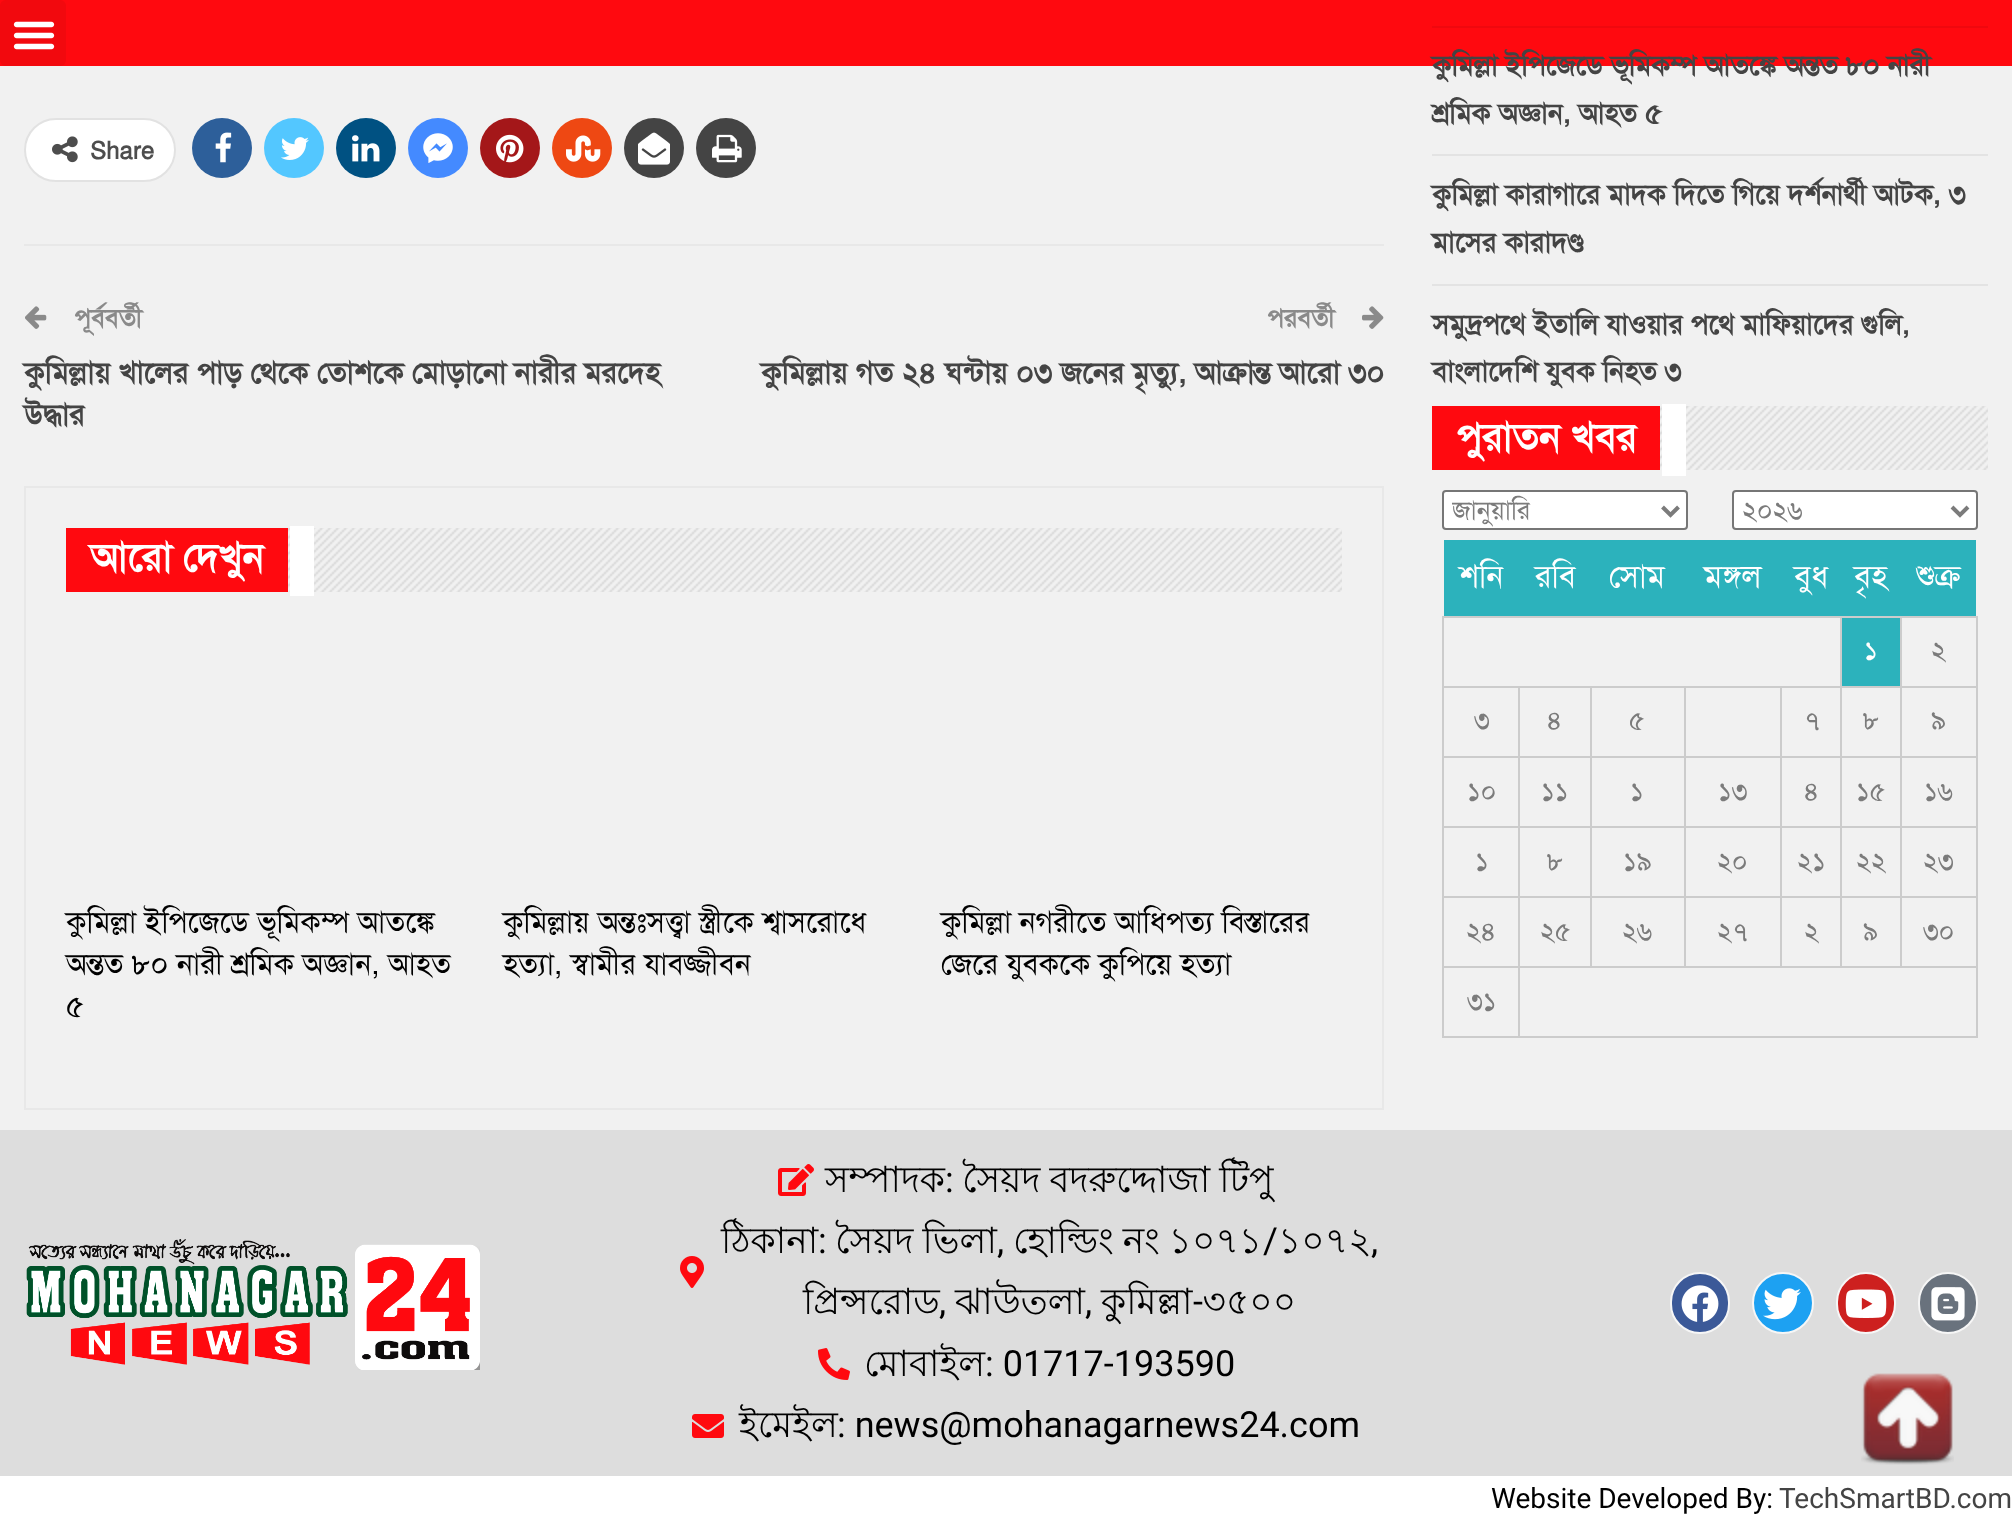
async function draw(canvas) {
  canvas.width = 2012
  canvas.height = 1523
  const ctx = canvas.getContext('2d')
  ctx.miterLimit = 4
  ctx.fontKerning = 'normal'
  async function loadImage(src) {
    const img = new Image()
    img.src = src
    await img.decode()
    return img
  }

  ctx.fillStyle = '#f1f1f1'
  ctx.fillRect(0, 0, 2012, 1523)
  ctx.fillStyle = '#ff090f'
  ctx.fillRect(0, 0, 2012, 66)
  ctx.fillStyle = '#f2090e'
  ctx.beginPath()
  ctx.roundRect(0, 0, 66, 66, 6)
  ctx.fill()
  ctx.drawImage(await loadImage('image0.png'), 13, 21, 42, 29)
  ctx.fillStyle = '#fff'
  ctx.beginPath()
  ctx.roundRect(25, 119, 150, 62, 31)
  ctx.fill()
  ctx.strokeStyle = '#e2e2e2'
  ctx.lineWidth = 2
  ctx.stroke()
  ctx.drawImage(await loadImage('image1.png'), 52, 136, 26, 27)
  ctx.font = 'bold 24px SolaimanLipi'
  ctx.fillStyle = '#4d4d4d'
  ctx.fillText('Share', 90, 159)
  ctx.fillStyle = '#2d5f9a'
  ctx.beginPath()
  ctx.arc(222, 148, 30, 0, 2 * Math.PI)
  ctx.fill()
  ctx.drawImage(await loadImage('image2.png'), 215, 132, 17, 31)
  ctx.fillStyle = '#53c7ff'
  ctx.beginPath()
  ctx.arc(294, 148, 30, 0, 2 * Math.PI)
  ctx.fill()
  ctx.drawImage(await loadImage('image3.png'), 281, 137, 28, 23)
  ctx.fillStyle = '#005182'
  ctx.beginPath()
  ctx.arc(366, 148, 30, 0, 2 * Math.PI)
  ctx.fill()
  ctx.drawImage(await loadImage('image4.png'), 352, 135, 28, 27)
  ctx.fillStyle = '#448aff'
  ctx.beginPath()
  ctx.arc(438, 148, 30, 0, 2 * Math.PI)
  ctx.fill()
  ctx.drawImage(await loadImage('image5.png'), 423, 133, 30, 30)
  ctx.fillStyle = '#a41719'
  ctx.beginPath()
  ctx.arc(510, 148, 30, 0, 2 * Math.PI)
  ctx.fill()
  ctx.drawImage(await loadImage('image6.png'), 496, 134, 28, 29)
  ctx.fillStyle = '#ee4813'
  ctx.beginPath()
  ctx.arc(582, 148, 30, 0, 2 * Math.PI)
  ctx.fill()
  ctx.drawImage(await loadImage('image7.png'), 566, 135, 35, 27)
  ctx.fillStyle = '#444'
  ctx.beginPath()
  ctx.arc(654, 148, 30, 0, 2 * Math.PI)
  ctx.fill()
  ctx.drawImage(await loadImage('image8.png'), 638, 132, 32, 33)
  ctx.beginPath()
  ctx.arc(726, 148, 30, 0, 2 * Math.PI)
  ctx.fill()
  ctx.drawImage(await loadImage('image9.png'), 712, 134, 30, 29)
  ctx.fillStyle = '#e8e8e8'
  ctx.fillRect(24, 244, 1360, 2)
  ctx.drawImage(await loadImage('image10.png'), 25, 306, 22, 23)
  ctx.font = 'bold 26px SolaimanLipi'
  ctx.fillStyle = '#8a8a8a'
  ctx.fillText('পূর্ববর্তী', 74, 327)
  ctx.font = 'bold 30px SolaimanLipi'
  ctx.fillStyle = '#444'
  ctx.fillText('কুমিল্লায় খালের পাড় থেকে তোশকে মোড়ানো নারীর মরদেহ', 24, 383)
  ctx.fillText('উদ্ধার', 24, 425)
  ctx.font = 'bold 26px SolaimanLipi'
  ctx.fillStyle = '#8a8a8a'
  ctx.fillText('পরবর্তী', 1267, 327)
  ctx.drawImage(await loadImage('image11.png'), 1362, 306, 22, 23)
  ctx.font = 'bold 30px SolaimanLipi'
  ctx.fillStyle = '#444'
  ctx.fillText('কুমিল্লায় গত ২৪ ঘন্টায় ০৩ জনের মৃত্যু, আক্রান্ত আরো ৩০', 761, 383)
  ctx.strokeStyle = '#e8e8e8'
  ctx.strokeRect(25, 487, 1358, 622)
  ctx.fillStyle = '#ff090f'
  ctx.fillRect(66, 528, 222, 64)
  ctx.font = 'bold 40px SolaimanLipi'
  ctx.fillStyle = '#fff'
  ctx.fillText('আরো দেখুন', 90, 571)
  ctx.drawImage(await loadImage('image12.png'), 288, 528, 1054, 64)
  ctx.fillRect(290, 526, 24, 70)
  ctx.font = '30px SolaimanLipi'
  ctx.fillStyle = '#000'
  ctx.fillText('কুমিল্লা ইপিজেডে ভূমিকম্প আতঙ্কে', 66, 932)
  ctx.fillText('অন্তত ৮০ নারী শ্রমিক অজ্ঞান, আহত', 66, 974)
  ctx.fillText('৫', 66, 1016)
  ctx.fillText('কুমিল্লায় অন্তঃসত্ত্বা স্ত্রীকে শ্বাসরোধে', 503, 932)
  ctx.fillText('হত্যা, স্বামীর যাবজ্জীবন', 503, 974)
  ctx.fillText('কুমিল্লা নগরীতে আধিপত্য বিস্তারের', 941, 932)
  ctx.fillText('জেরে যুবককে কুপিয়ে হত্যা', 941, 974)
  ctx.fillStyle = '#f0080e'
  ctx.fillRect(1432, 26, 556, 2)
  ctx.fillStyle = '#e3e3e3'
  ctx.fillRect(1432, 154, 556, 2)
  ctx.font = 'bold 28px SolaimanLipi'
  ctx.fillStyle = '#444'
  ctx.fillText('কুমিল্লা ইপিজেডে ভূমিকম্প আতঙ্কে অন্তত ৮০ নারী', 1432, 75)
  ctx.fillText('শ্রমিক অজ্ঞান, আহত ৫', 1432, 123)
  ctx.fillStyle = '#e3e3e3'
  ctx.fillRect(1432, 284, 556, 2)
  ctx.fillStyle = '#444'
  ctx.fillText('কুমিল্লা কারাগারে মাদক দিতে গিয়ে দর্শনার্থী আটক, ৩', 1432, 204)
  ctx.fillText('মাসের কারাদণ্ড', 1432, 252)
  ctx.fillText('সমুদ্রপথে ইতালি যাওয়ার পথে মাফিয়াদের গুলি,', 1432, 334)
  ctx.fillText('বাংলাদেশি যুবক নিহত ৩', 1432, 381)
  ctx.fillStyle = '#ff090f'
  ctx.fillRect(1432, 406, 228, 64)
  ctx.font = 'bold 40px SolaimanLipi'
  ctx.fillStyle = '#fff'
  ctx.fillText('পুরাতন খবর', 1456, 451)
  ctx.drawImage(await loadImage('image13.png'), 1660, 406, 328, 64)
  ctx.fillRect(1662, 404, 24, 72)
  ctx.beginPath()
  ctx.roundRect(1443, 491, 244, 38, 3)
  ctx.fill()
  ctx.strokeStyle = '#767676'
  ctx.stroke()
  ctx.beginPath()
  ctx.moveTo(1662.5, 507)
  ctx.lineTo(1670.5, 515)
  ctx.lineTo(1678.5, 507)
  ctx.strokeStyle = '#7b7b7b'
  ctx.lineWidth = 4
  ctx.stroke()
  ctx.save()
  ctx.beginPath()
  ctx.rect(1452, 492, 202, 36)
  ctx.clip()
  ctx.font = '26px SolaimanLipi'
  ctx.fillStyle = '#7b7b7b'
  ctx.fillText('জানুয়ারি', 1452, 519)
  ctx.restore()
  ctx.beginPath()
  ctx.roundRect(1733, 491, 244, 38, 3)
  ctx.fill()
  ctx.strokeStyle = '#767676'
  ctx.lineWidth = 2
  ctx.stroke()
  ctx.beginPath()
  ctx.moveTo(1952, 507)
  ctx.lineTo(1960, 515)
  ctx.lineTo(1968, 507)
  ctx.strokeStyle = '#7b7b7b'
  ctx.lineWidth = 4
  ctx.stroke()
  ctx.font = '26px SolaimanLipi'
  ctx.fillStyle = '#7b7b7b'
  ctx.fillText('২০২৬', 1742, 519)
  ctx.fillStyle = '#2cb2bc'
  ctx.fillRect(1444, 540, 532, 76)
  ctx.font = '32px SolaimanLipi'
  ctx.fillStyle = '#fff'
  ctx.fillText('শনি', 1459, 587)
  ctx.fillText('রবি', 1535, 587)
  ctx.fillText('সোম', 1609, 587)
  ctx.fillText('মঙ্গল', 1704, 587)
  ctx.fillText('বুধ', 1794, 587)
  ctx.fillText('বৃহ', 1854, 587)
  ctx.fillText('শুক্র', 1916, 587)
  ctx.fillStyle = '#ccc'
  ctx.fillRect(1900, 616, 78, 2)
  ctx.fillRect(1900, 686, 78, 2)
  ctx.fillRect(1900, 756, 78, 2)
  ctx.fillRect(1900, 826, 78, 2)
  ctx.fillRect(1900, 896, 78, 2)
  ctx.fillRect(1518, 966, 460, 2)
  ctx.fillRect(1900, 896, 2, 72)
  ctx.fillRect(1840, 896, 62, 2)
  ctx.fillRect(1900, 826, 2, 72)
  ctx.fillRect(1840, 826, 62, 2)
  ctx.fillRect(1900, 756, 2, 72)
  ctx.fillRect(1840, 756, 62, 2)
  ctx.fillRect(1900, 686, 2, 72)
  ctx.fillRect(1840, 686, 62, 2)
  ctx.fillRect(1900, 616, 2, 72)
  ctx.fillRect(1840, 616, 62, 2)
  ctx.fillRect(1840, 896, 2, 72)
  ctx.fillRect(1780, 896, 62, 2)
  ctx.fillRect(1840, 826, 2, 72)
  ctx.fillRect(1780, 826, 62, 2)
  ctx.fillRect(1840, 756, 2, 72)
  ctx.fillRect(1780, 756, 62, 2)
  ctx.fillRect(1840, 686, 2, 72)
  ctx.fillRect(1780, 686, 62, 2)
  ctx.fillRect(1840, 616, 2, 72)
  ctx.fillRect(1442, 616, 400, 2)
  ctx.fillRect(1780, 896, 2, 72)
  ctx.fillRect(1684, 896, 98, 2)
  ctx.fillRect(1780, 826, 2, 72)
  ctx.fillRect(1684, 826, 98, 2)
  ctx.fillRect(1780, 756, 2, 72)
  ctx.fillRect(1684, 756, 98, 2)
  ctx.fillRect(1780, 686, 2, 72)
  ctx.fillRect(1684, 686, 98, 2)
  ctx.fillRect(1684, 896, 2, 72)
  ctx.fillRect(1590, 896, 96, 2)
  ctx.fillRect(1684, 826, 2, 72)
  ctx.fillRect(1590, 826, 96, 2)
  ctx.fillRect(1684, 756, 2, 72)
  ctx.fillRect(1590, 756, 96, 2)
  ctx.fillRect(1684, 686, 2, 72)
  ctx.fillRect(1590, 686, 96, 2)
  ctx.fillRect(1590, 896, 2, 72)
  ctx.fillRect(1518, 896, 74, 2)
  ctx.fillRect(1590, 826, 2, 72)
  ctx.fillRect(1518, 826, 74, 2)
  ctx.fillRect(1590, 756, 2, 72)
  ctx.fillRect(1518, 756, 74, 2)
  ctx.fillRect(1590, 686, 2, 72)
  ctx.fillRect(1518, 686, 74, 2)
  ctx.fillRect(1976, 966, 2, 72)
  ctx.fillRect(1518, 1036, 460, 2)
  ctx.fillRect(1518, 966, 2, 72)
  ctx.fillRect(1442, 966, 78, 2)
  ctx.fillRect(1518, 896, 2, 72)
  ctx.fillRect(1442, 896, 78, 2)
  ctx.fillRect(1518, 826, 2, 72)
  ctx.fillRect(1442, 826, 78, 2)
  ctx.fillRect(1518, 756, 2, 72)
  ctx.fillRect(1442, 756, 78, 2)
  ctx.fillRect(1518, 686, 2, 72)
  ctx.fillRect(1442, 686, 78, 2)
  ctx.fillRect(1442, 1036, 78, 2)
  ctx.fillRect(1442, 966, 2, 72)
  ctx.fillRect(1442, 896, 2, 72)
  ctx.fillRect(1442, 826, 2, 72)
  ctx.fillRect(1442, 756, 2, 72)
  ctx.fillRect(1442, 686, 2, 72)
  ctx.fillRect(1442, 616, 2, 72)
  ctx.fillStyle = '#2cb2bc'
  ctx.fillRect(1842, 618, 58, 68)
  ctx.font = '26px SolaimanLipi'
  ctx.fillStyle = '#fff'
  ctx.fillText('১', 1864, 659)
  ctx.fillStyle = '#ccc'
  ctx.fillRect(1976, 896, 2, 72)
  ctx.fillRect(1976, 826, 2, 72)
  ctx.fillRect(1976, 756, 2, 72)
  ctx.fillRect(1976, 686, 2, 72)
  ctx.fillRect(1976, 616, 2, 72)
  ctx.fillStyle = '#7b7b7b'
  ctx.fillText('২', 1931, 659)
  ctx.fillText('৩', 1474, 729)
  ctx.fillText('৪', 1547, 729)
  ctx.fillText('৫', 1629, 729)
  ctx.fillText('৭', 1804, 729)
  ctx.fillText('৮', 1863, 729)
  ctx.fillText('৯', 1931, 729)
  ctx.fillText('১০', 1467, 800)
  ctx.fillText('১১', 1541, 800)
  ctx.fillText('১', 1630, 800)
  ctx.fillText('১৩', 1718, 800)
  ctx.fillText('৪', 1804, 800)
  ctx.fillText('১৫', 1856, 800)
  ctx.fillText('১৬', 1924, 800)
  ctx.fillText('১', 1475, 870)
  ctx.fillText('৮', 1547, 870)
  ctx.fillText('১৯', 1623, 870)
  ctx.fillText('২০', 1717, 870)
  ctx.fillText('২১', 1797, 870)
  ctx.fillText('২২', 1856, 870)
  ctx.fillText('২৩', 1923, 870)
  ctx.fillText('২৪', 1466, 940)
  ctx.fillText('২৫', 1540, 940)
  ctx.fillText('২৬', 1622, 940)
  ctx.fillText('২৭', 1717, 940)
  ctx.fillText('২', 1804, 940)
  ctx.fillText('৯', 1863, 940)
  ctx.fillText('৩০', 1923, 940)
  ctx.fillText('৩১', 1467, 1010)
  ctx.fillStyle = '#ddd'
  ctx.fillRect(0, 1130, 2012, 346)
  ctx.drawImage(await loadImage('image14.png'), 26, 1239, 454, 131)
  ctx.drawImage(await loadImage('image15.png'), 778, 1164, 36, 32)
  ctx.font = '36px Lohit Bengali'
  ctx.fillStyle = '#000'
  ctx.fillText('সম্পাদক', 825, 1192)
  ctx.font = '36px Roboto'
  ctx.fillText(':', 945, 1192)
  ctx.wordSpacing = '-1px'
  ctx.font = '36px Lohit Bengali'
  ctx.fillText('সৈয়দ বদরুদ্দোজা টিপু', 962, 1192)
  ctx.drawImage(await loadImage('image16.png'), 680, 1256, 24, 32)
  ctx.wordSpacing = '0px'
  ctx.fillText('ঠিকানা', 721, 1253)
  ctx.font = '36px Roboto'
  ctx.fillText(':', 818, 1253)
  ctx.wordSpacing = '-1px'
  ctx.font = '36px Lohit Bengali'
  ctx.fillText('সৈয়দ ভিলা', 835, 1253)
  ctx.wordSpacing = '0px'
  ctx.font = '36px Roboto'
  ctx.fillText(',', 997, 1253)
  ctx.wordSpacing = '-1px'
  ctx.font = '36px Lohit Bengali'
  ctx.fillText('হোল্ডিং নং ১০৭১', 1013, 1253)
  ctx.wordSpacing = '0px'
  ctx.font = '36px Roboto'
  ctx.fillText('/', 1263, 1253)
  ctx.font = '36px Lohit Bengali'
  ctx.fillText('১০৭২', 1278, 1253)
  ctx.font = '36px Roboto'
  ctx.fillText(',', 1371, 1253)
  ctx.font = '36px Lohit Bengali'
  ctx.fillText('প্রিন্সরোড', 803, 1314)
  ctx.fillText('ঝাউতলা', 955, 1314)
  ctx.font = '36px Roboto'
  ctx.fillText(',', 1085, 1314)
  ctx.font = '36px Lohit Bengali'
  ctx.fillText('কুমিল্লা ৩৫০০', 1101, 1314)
  ctx.font = '36px Roboto'
  ctx.fillText('-', 1193, 1314)
  ctx.fillText(',', 939, 1314)
  ctx.drawImage(await loadImage('image17.png'), 818, 1348, 32, 32)
  ctx.font = '36px Lohit Bengali'
  ctx.fillText('মোবাইল', 864, 1376)
  ctx.font = '36px Roboto'
  ctx.fillText(': 01717-193590', 985, 1376)
  ctx.drawImage(await loadImage('image18.png'), 692, 1414, 32, 24)
  ctx.font = '36px Lohit Bengali'
  ctx.fillText('ইমেইল', 739, 1437)
  ctx.font = '36px Roboto'
  ctx.fillText(': news@mohanagarnews24.com', 837, 1437)
  ctx.fillStyle = '#3b5998'
  ctx.beginPath()
  ctx.roundRect(1671, 1273, 58, 60, 29)
  ctx.fill()
  ctx.strokeStyle = '#f6f6f6'
  ctx.lineWidth = 2
  ctx.stroke()
  ctx.drawImage(await loadImage('image19.png'), 1681, 1285, 38, 37)
  ctx.fillStyle = '#1da1f2'
  ctx.beginPath()
  ctx.arc(1783, 1303, 30, 0, 2 * Math.PI)
  ctx.fill()
  ctx.stroke()
  ctx.drawImage(await loadImage('image20.png'), 1763, 1288, 38, 32)
  ctx.fillStyle = '#cd201f'
  ctx.beginPath()
  ctx.roundRect(1837, 1273, 58, 60, 29)
  ctx.fill()
  ctx.stroke()
  ctx.drawImage(await loadImage('image21.png'), 1845, 1289, 42, 29)
  ctx.fillStyle = '#69727d'
  ctx.beginPath()
  ctx.roundRect(1919, 1273, 58, 60, 29)
  ctx.fill()
  ctx.stroke()
  ctx.drawImage(await loadImage('image22.png'), 1931, 1287, 34, 34)
  ctx.fillStyle = '#fff'
  ctx.fillRect(0, 1476, 2012, 47)
  ctx.font = '28px Roboto'
  ctx.fillStyle = '#000'
  ctx.fillText('Website Developed By:', 1491, 1508)
  ctx.fillStyle = '#444'
  ctx.fillText('TechSmartBD.com', 1779, 1508)
  ctx.drawImage(await loadImage('image23.png'), 1861, 1373, 93, 92)
}

draw(document.querySelector('canvas'))
